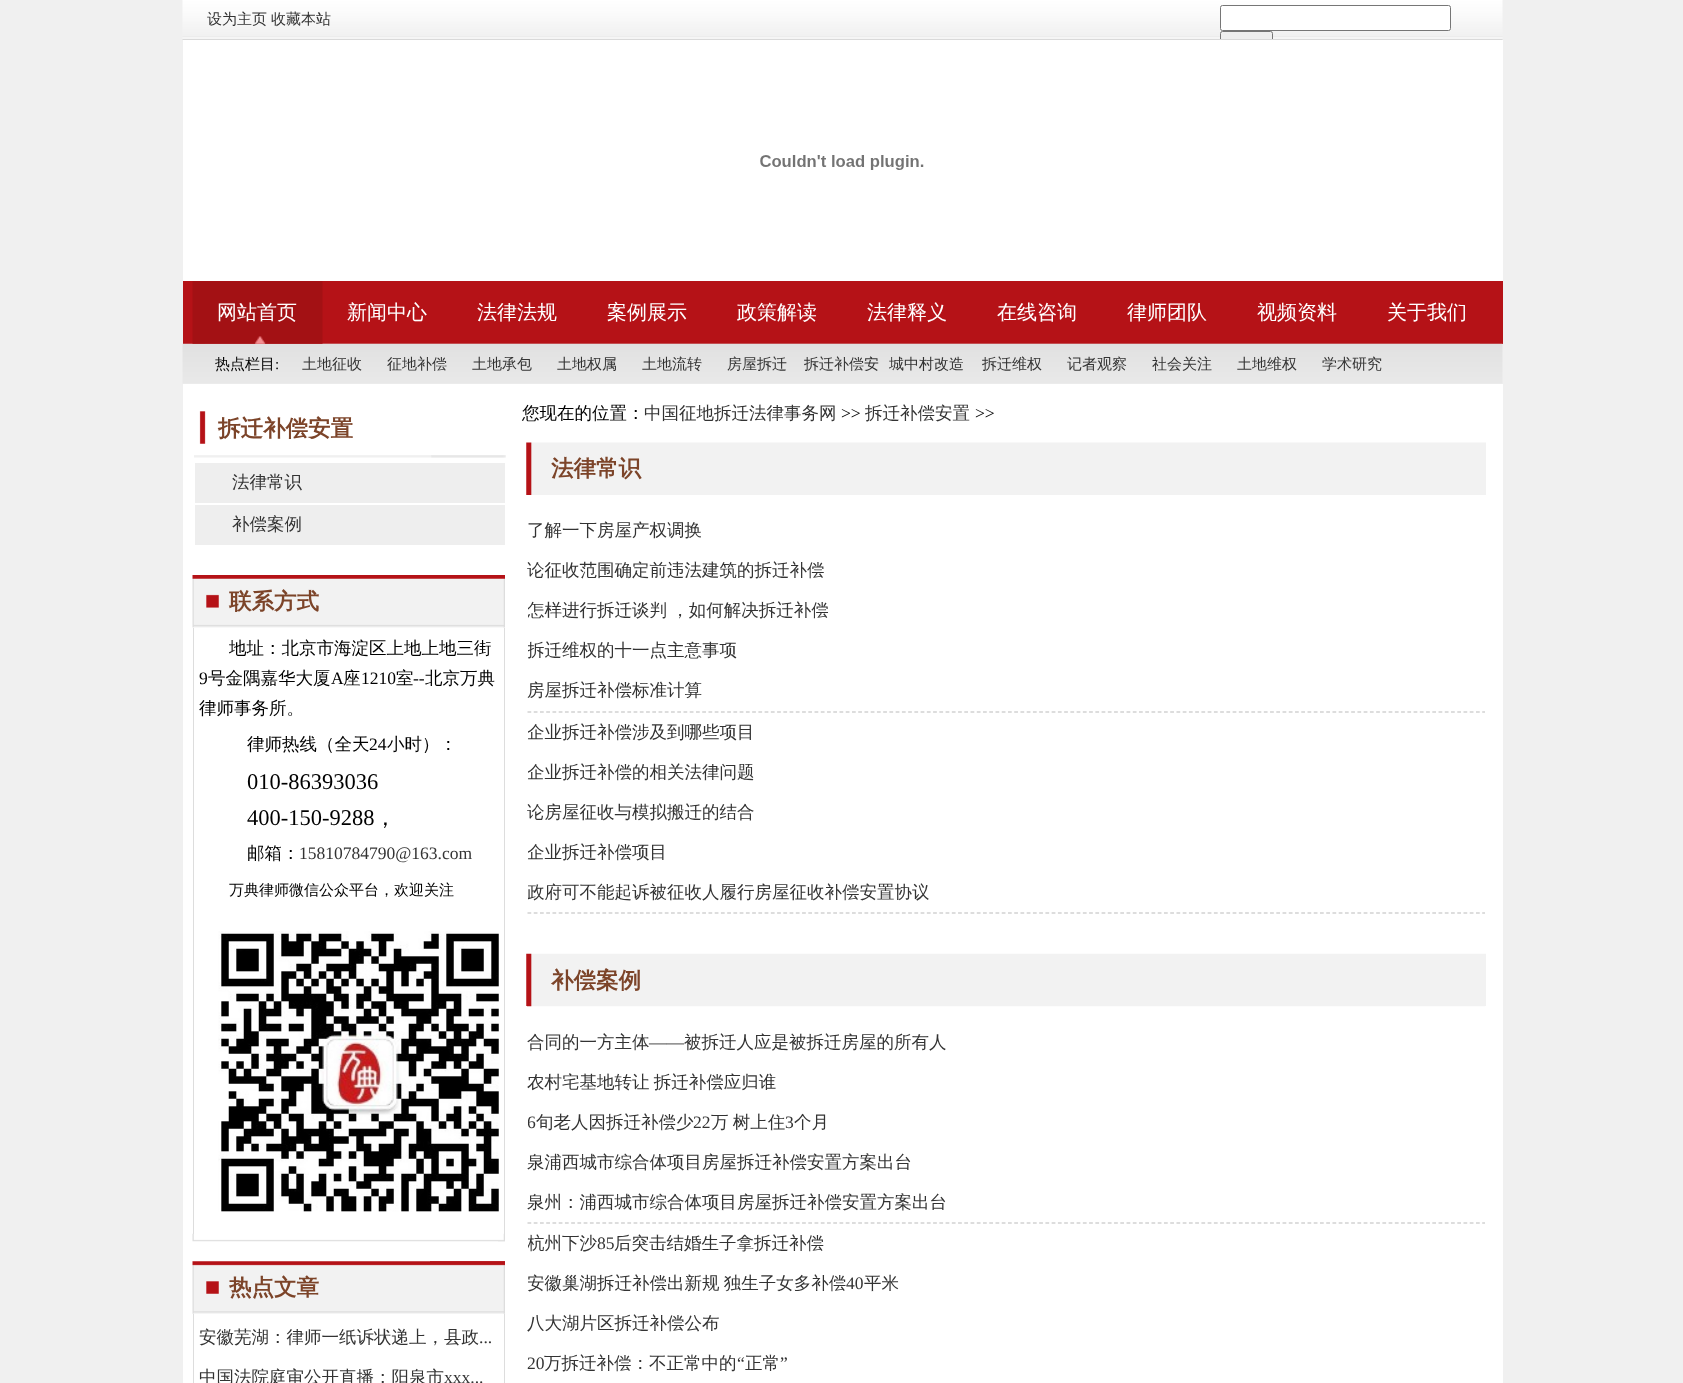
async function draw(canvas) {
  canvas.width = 1683
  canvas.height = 1383
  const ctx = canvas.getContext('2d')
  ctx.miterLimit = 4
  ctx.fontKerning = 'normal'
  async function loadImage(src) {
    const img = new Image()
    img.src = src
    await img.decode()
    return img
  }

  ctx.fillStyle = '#f0f0f0'
  ctx.fillRect(0, 0, 1683, 1383)
  ctx.drawImage(await loadImage('image0.png'), 182, 0, 1321, 40)
  ctx.fillStyle = '#fff'
  ctx.fillRect(183, 40, 1320, 241)
  ctx.font = '500 15px WenQuanYi Zen Hei'
  ctx.fillStyle = '#333'
  ctx.fillText('设为主页', 207, 24)
  ctx.fillText('收藏本站', 271, 24)
  ctx.fillStyle = '#fff'
  ctx.beginPath()
  ctx.roundRect(1220.5, 5.5, 230, 25, 2)
  ctx.fill()
  ctx.strokeStyle = '#767676'
  ctx.stroke()
  ctx.fillStyle = '#efefef'
  ctx.beginPath()
  ctx.roundRect(1220, 31, 53, 8, [2.5, 2.5, 0, 0])
  ctx.fill()
  ctx.save()
  ctx.beginPath()
  ctx.rect(1220, 5, 269, 34)
  ctx.clip()
  ctx.beginPath()
  ctx.roundRect(1220.5, 31.5, 52, 29, 2)
  ctx.stroke()
  ctx.restore()
  ctx.drawImage(await loadImage('image1.png'), 760, 155, 164, 15)
  ctx.fillStyle = '#b51217'
  ctx.fillRect(183, 281, 1320, 63)
  ctx.drawImage(await loadImage('image3.png'), 182, 343, 1321, 41)
  ctx.fillStyle = '#c14f52'
  ctx.fillRect(205, 343, 1275, 1)
  ctx.drawImage(await loadImage('image2.png'), 192, 281, 131, 63)
  ctx.font = '500 20px WenQuanYi Zen Hei'
  ctx.fillStyle = '#fff'
  ctx.fillText('网站首页', 217, 319)
  ctx.fillText('新闻中心', 347, 319)
  ctx.fillText('法律法规', 477, 319)
  ctx.fillText('案例展示', 607, 319)
  ctx.fillText('政策解读', 737, 319)
  ctx.fillText('法律释义', 867, 319)
  ctx.fillText('在线咨询', 997, 319)
  ctx.fillText('律师团队', 1127, 319)
  ctx.fillText('视频资料', 1257, 319)
  ctx.fillText('关于我们', 1387, 319)
  ctx.font = '500 15px WenQuanYi Zen Hei'
  ctx.fillStyle = '#000'
  ctx.fillText('热点栏目', 215, 369)
  ctx.font = '15px Liberation Serif'
  ctx.fillText(':', 275, 369)
  ctx.font = '500 15px WenQuanYi Zen Hei'
  ctx.fillStyle = '#333'
  ctx.fillText('土地征收', 302, 369)
  ctx.fillText('征地补偿', 387, 369)
  ctx.fillText('土地承包', 472, 369)
  ctx.fillText('土地权属', 557, 369)
  ctx.fillText('土地流转', 642, 369)
  ctx.fillText('房屋拆迁', 727, 369)
  ctx.fillText('拆迁补偿安', 804, 369)
  ctx.fillText('城中村改造', 889, 369)
  ctx.fillText('拆迁维权', 982, 369)
  ctx.fillText('记者观察', 1067, 369)
  ctx.fillText('社会关注', 1152, 369)
  ctx.fillText('土地维权', 1237, 369)
  ctx.fillText('学术研究', 1322, 369)
  ctx.fillStyle = '#fff'
  ctx.fillRect(183, 384, 1320, 999)
  ctx.drawImage(await loadImage('image4.png'), 194, 411, 312, 47)
  ctx.font = 'bold 22.5px WenQuanYi Zen Hei'
  ctx.fillStyle = '#7c4429'
  ctx.fillText('拆迁补偿安置', 218, 436)
  ctx.drawImage(await loadImage('image5.png'), 431, 455, 74, 3)
  ctx.fillStyle = '#eee'
  ctx.fillRect(195, 463, 310, 40)
  ctx.font = '500 17.5px WenQuanYi Zen Hei'
  ctx.fillStyle = '#333'
  ctx.fillText('法律常识', 232, 488)
  ctx.fillStyle = '#eee'
  ctx.fillRect(195, 505, 310, 40)
  ctx.fillStyle = '#333'
  ctx.fillText('补偿案例', 232, 530)
  ctx.drawImage(await loadImage('image6.png'), 192, 575, 313, 53)
  ctx.font = 'bold 22.5px WenQuanYi Zen Hei'
  ctx.fillStyle = '#7c4429'
  ctx.fillText('联系方式', 229, 609)
  ctx.drawImage(await loadImage('image7.png'), 503, 578, 2, 50)
  ctx.drawImage(await loadImage('image9.png'), 192, 1233, 313, 9)
  ctx.drawImage(await loadImage('image10.png'), 498, 1233, 7, 9)
  ctx.fillStyle = '#ddd'
  ctx.fillRect(504, 628, 1, 606)
  ctx.fillRect(193, 628, 1, 606)
  ctx.font = '500 17.5px WenQuanYi Zen Hei'
  ctx.fillStyle = '#000'
  ctx.fillText('地址：北京市海淀区上地上地三街', 229, 654)
  ctx.font = '17.5px Liberation Serif'
  ctx.fillText('9', 199, 684)
  ctx.font = '500 17.5px WenQuanYi Zen Hei'
  ctx.fillText('号金隅嘉华大厦', 208, 684)
  ctx.font = '17.5px Liberation Serif'
  ctx.fillText('A', 331, 684)
  ctx.font = '500 17.5px WenQuanYi Zen Hei'
  ctx.fillText('座', 343, 684)
  ctx.font = '17.5px Liberation Serif'
  ctx.fillText('1210', 361, 684)
  ctx.font = '500 17.5px WenQuanYi Zen Hei'
  ctx.fillText('室', 396, 684)
  ctx.font = '17.5px Liberation Serif'
  ctx.fillText('--', 413, 684)
  ctx.font = '500 17.5px WenQuanYi Zen Hei'
  ctx.fillText('北京万典', 425, 684)
  ctx.fillText('律师事务所。', 199, 714)
  ctx.fillText('律师热线（全天', 247, 750)
  ctx.font = '17.5px Liberation Serif'
  ctx.fillText('24', 369, 750)
  ctx.font = '500 17.5px WenQuanYi Zen Hei'
  ctx.fillText('小时）：', 387, 750)
  ctx.font = '22.5px Liberation Serif'
  ctx.fillText('010-86393036', 247, 789)
  ctx.fillText('400-150-9288', 247, 825)
  ctx.font = '500 22.5px WenQuanYi Zen Hei'
  ctx.fillText('，', 374, 825)
  ctx.font = '500 17.5px WenQuanYi Zen Hei'
  ctx.fillText('邮箱：', 247, 859)
  ctx.font = '17.5px Liberation Serif'
  ctx.fillStyle = '#333'
  ctx.fillText('15810784790@163.com', 299, 859)
  ctx.font = '500 15px WenQuanYi Zen Hei'
  ctx.fillStyle = '#000'
  ctx.fillText('万典律师微信公众平台，欢迎关注', 229, 895)
  ctx.drawImage(await loadImage('image8.png'), 218, 931, 281, 281)
  ctx.drawImage(await loadImage('image11.png'), 192, 1261, 313, 53)
  ctx.font = 'bold 22.5px WenQuanYi Zen Hei'
  ctx.fillStyle = '#7c4429'
  ctx.fillText('热点文章', 229, 1295)
  ctx.drawImage(await loadImage('image12.png'), 430, 1261, 75, 53)
  ctx.fillStyle = '#ddd'
  ctx.fillRect(504, 1314, 1, 69)
  ctx.fillRect(193, 1314, 1, 69)
  ctx.font = '500 17.5px WenQuanYi Zen Hei'
  ctx.fillStyle = '#333'
  ctx.fillText('安徽芜湖：律师一纸诉状递上，县政', 199, 1343)
  ctx.font = '17.5px Liberation Serif'
  ctx.fillText('...', 479, 1343)
  ctx.font = '500 17.5px WenQuanYi Zen Hei'
  ctx.fillText('中国法院庭审公开直播：阳泉市', 199, 1383)
  ctx.font = '17.5px Liberation Serif'
  ctx.fillText('xxx...', 444, 1383)
  ctx.font = '500 17.5px WenQuanYi Zen Hei'
  ctx.fillStyle = '#000'
  ctx.fillText('您现在的位置：', 522, 419)
  ctx.fillStyle = '#333'
  ctx.fillText('中国征地拆迁法律事务网', 644, 419)
  ctx.font = '17.5px Liberation Serif'
  ctx.fillStyle = '#000'
  ctx.fillText('>>', 841, 419)
  ctx.font = '500 17.5px WenQuanYi Zen Hei'
  ctx.fillStyle = '#333'
  ctx.fillText('拆迁补偿安置', 865, 419)
  ctx.font = '17.5px Liberation Serif'
  ctx.fillStyle = '#000'
  ctx.fillText('>>', 975, 419)
  ctx.drawImage(await loadImage('image13.png'), 526, 442, 960, 53)
  ctx.font = 'bold 22.5px WenQuanYi Zen Hei'
  ctx.fillStyle = '#7c4429'
  ctx.fillText('法律常识', 551, 476)
  ctx.font = '500 17.5px WenQuanYi Zen Hei'
  ctx.fillStyle = '#333'
  ctx.fillText('了解一下房屋产权调换', 527, 536)
  ctx.fillText('论征收范围确定前违法建筑的拆迁补偿', 527, 576)
  ctx.save()
  ctx.beginPath()
  ctx.rect(528, 591, 957, 40)
  ctx.clip()
  ctx.wordSpacing = '-1px'
  ctx.fillText('怎样进行拆迁谈判 ，如何解决拆迁补偿', 527, 616)
  ctx.restore()
  ctx.save()
  ctx.beginPath()
  ctx.rect(528, 631, 957, 40)
  ctx.clip()
  ctx.fillText('拆迁维权的十一点主意事项', 527, 656)
  ctx.restore()
  ctx.beginPath()
  ctx.moveTo(527.5, 712)
  ctx.lineTo(1485, 712)
  ctx.strokeStyle = '#bbb'
  ctx.lineWidth = 1.2
  ctx.setLineDash([3.75, 2.49])
  ctx.stroke()
  ctx.fillText('房屋拆迁补偿标准计算', 527, 696)
  ctx.save()
  ctx.beginPath()
  ctx.rect(528, 713, 957, 40)
  ctx.clip()
  ctx.fillText('企业拆迁补偿涉及到哪些项目', 527, 738)
  ctx.restore()
  ctx.save()
  ctx.beginPath()
  ctx.rect(528, 753, 957, 40)
  ctx.clip()
  ctx.fillText('企业拆迁补偿的相关法律问题', 527, 778)
  ctx.restore()
  ctx.fillText('论房屋征收与模拟搬迁的结合', 527, 818)
  ctx.save()
  ctx.beginPath()
  ctx.rect(528, 833, 957, 40)
  ctx.clip()
  ctx.fillText('企业拆迁补偿项目', 527, 858)
  ctx.restore()
  ctx.beginPath()
  ctx.moveTo(527.5, 913)
  ctx.lineTo(1485, 913)
  ctx.stroke()
  ctx.save()
  ctx.beginPath()
  ctx.rect(528, 873, 957, 40)
  ctx.clip()
  ctx.fillText('政府可不能起诉被征收人履行房屋征收补偿安置协议', 527, 898)
  ctx.restore()
  ctx.drawImage(await loadImage('image14.png'), 526, 953, 960, 54)
  ctx.font = 'bold 22.5px WenQuanYi Zen Hei'
  ctx.fillStyle = '#7c4429'
  ctx.fillText('补偿案例', 551, 988)
  ctx.fillStyle = '#fff'
  ctx.fillRect(1485, 1006, 1, 1)
  ctx.fillRect(526, 1006, 1, 1)
  ctx.font = '500 17.5px WenQuanYi Zen Hei'
  ctx.fillStyle = '#333'
  ctx.fillText('合同的一方主体', 527, 1048)
  ctx.font = '17.5px Liberation Serif'
  ctx.fillText('——', 649, 1048)
  ctx.font = '500 17.5px WenQuanYi Zen Hei'
  ctx.fillText('被拆迁人应是被拆迁房屋的所有人', 684, 1048)
  ctx.wordSpacing = '-1px'
  ctx.fillText('农村宅基地转让 拆迁补偿应归谁', 527, 1088)
  ctx.save()
  ctx.beginPath()
  ctx.rect(528, 1103, 957, 40)
  ctx.clip()
  ctx.wordSpacing = '0px'
  ctx.font = '17.5px Liberation Serif'
  ctx.fillText('6', 527, 1128)
  ctx.restore()
  ctx.wordSpacing = '0px'
  ctx.fillText('旬老人因拆迁补偿少', 536, 1128)
  ctx.font = '17.5px Liberation Serif'
  ctx.fillText('22', 693, 1128)
  ctx.wordSpacing = '-1px'
  ctx.font = '500 17.5px WenQuanYi Zen Hei'
  ctx.fillText('万 树上住', 711, 1128)
  ctx.wordSpacing = '0px'
  ctx.font = '17.5px Liberation Serif'
  ctx.fillText('3', 785, 1128)
  ctx.font = '500 17.5px WenQuanYi Zen Hei'
  ctx.fillText('个月', 794, 1128)
  ctx.fillText('泉浦西城市综合体项目房屋拆迁补偿安置方案出台', 527, 1168)
  ctx.beginPath()
  ctx.moveTo(527.5, 1223)
  ctx.lineTo(1485, 1223)
  ctx.stroke()
  ctx.fillText('泉州：浦西城市综合体项目房屋拆迁补偿安置方案出台', 527, 1208)
  ctx.save()
  ctx.beginPath()
  ctx.rect(528, 1224, 957, 40)
  ctx.clip()
  ctx.fillText('杭州下沙', 527, 1249)
  ctx.restore()
  ctx.font = '17.5px Liberation Serif'
  ctx.fillText('85', 597, 1249)
  ctx.font = '500 17.5px WenQuanYi Zen Hei'
  ctx.fillText('后突击结婚生子拿拆迁补偿', 614, 1249)
  ctx.save()
  ctx.beginPath()
  ctx.rect(528, 1264, 957, 40)
  ctx.clip()
  ctx.wordSpacing = '-1px'
  ctx.fillText('安徽巢湖拆迁补偿出新规 独生子女多补偿', 527, 1289)
  ctx.restore()
  ctx.font = '17.5px Liberation Serif'
  ctx.fillText('40', 846, 1289)
  ctx.font = '500 17.5px WenQuanYi Zen Hei'
  ctx.fillText('平米', 864, 1289)
  ctx.fillText('八大湖片区拆迁补偿公布', 527, 1329)
  ctx.font = '17.5px Liberation Serif'
  ctx.fillText('20', 527, 1369)
  ctx.font = '500 17.5px WenQuanYi Zen Hei'
  ctx.fillText('万拆迁补偿：不正常中的', 544, 1369)
  ctx.font = '17.5px Liberation Serif'
  ctx.fillText('“', 737, 1369)
  ctx.font = '500 17.5px WenQuanYi Zen Hei'
  ctx.fillText('正常', 745, 1369)
  ctx.font = '17.5px Liberation Serif'
  ctx.fillText('”', 780, 1369)
}

draw(document.querySelector('canvas'))
